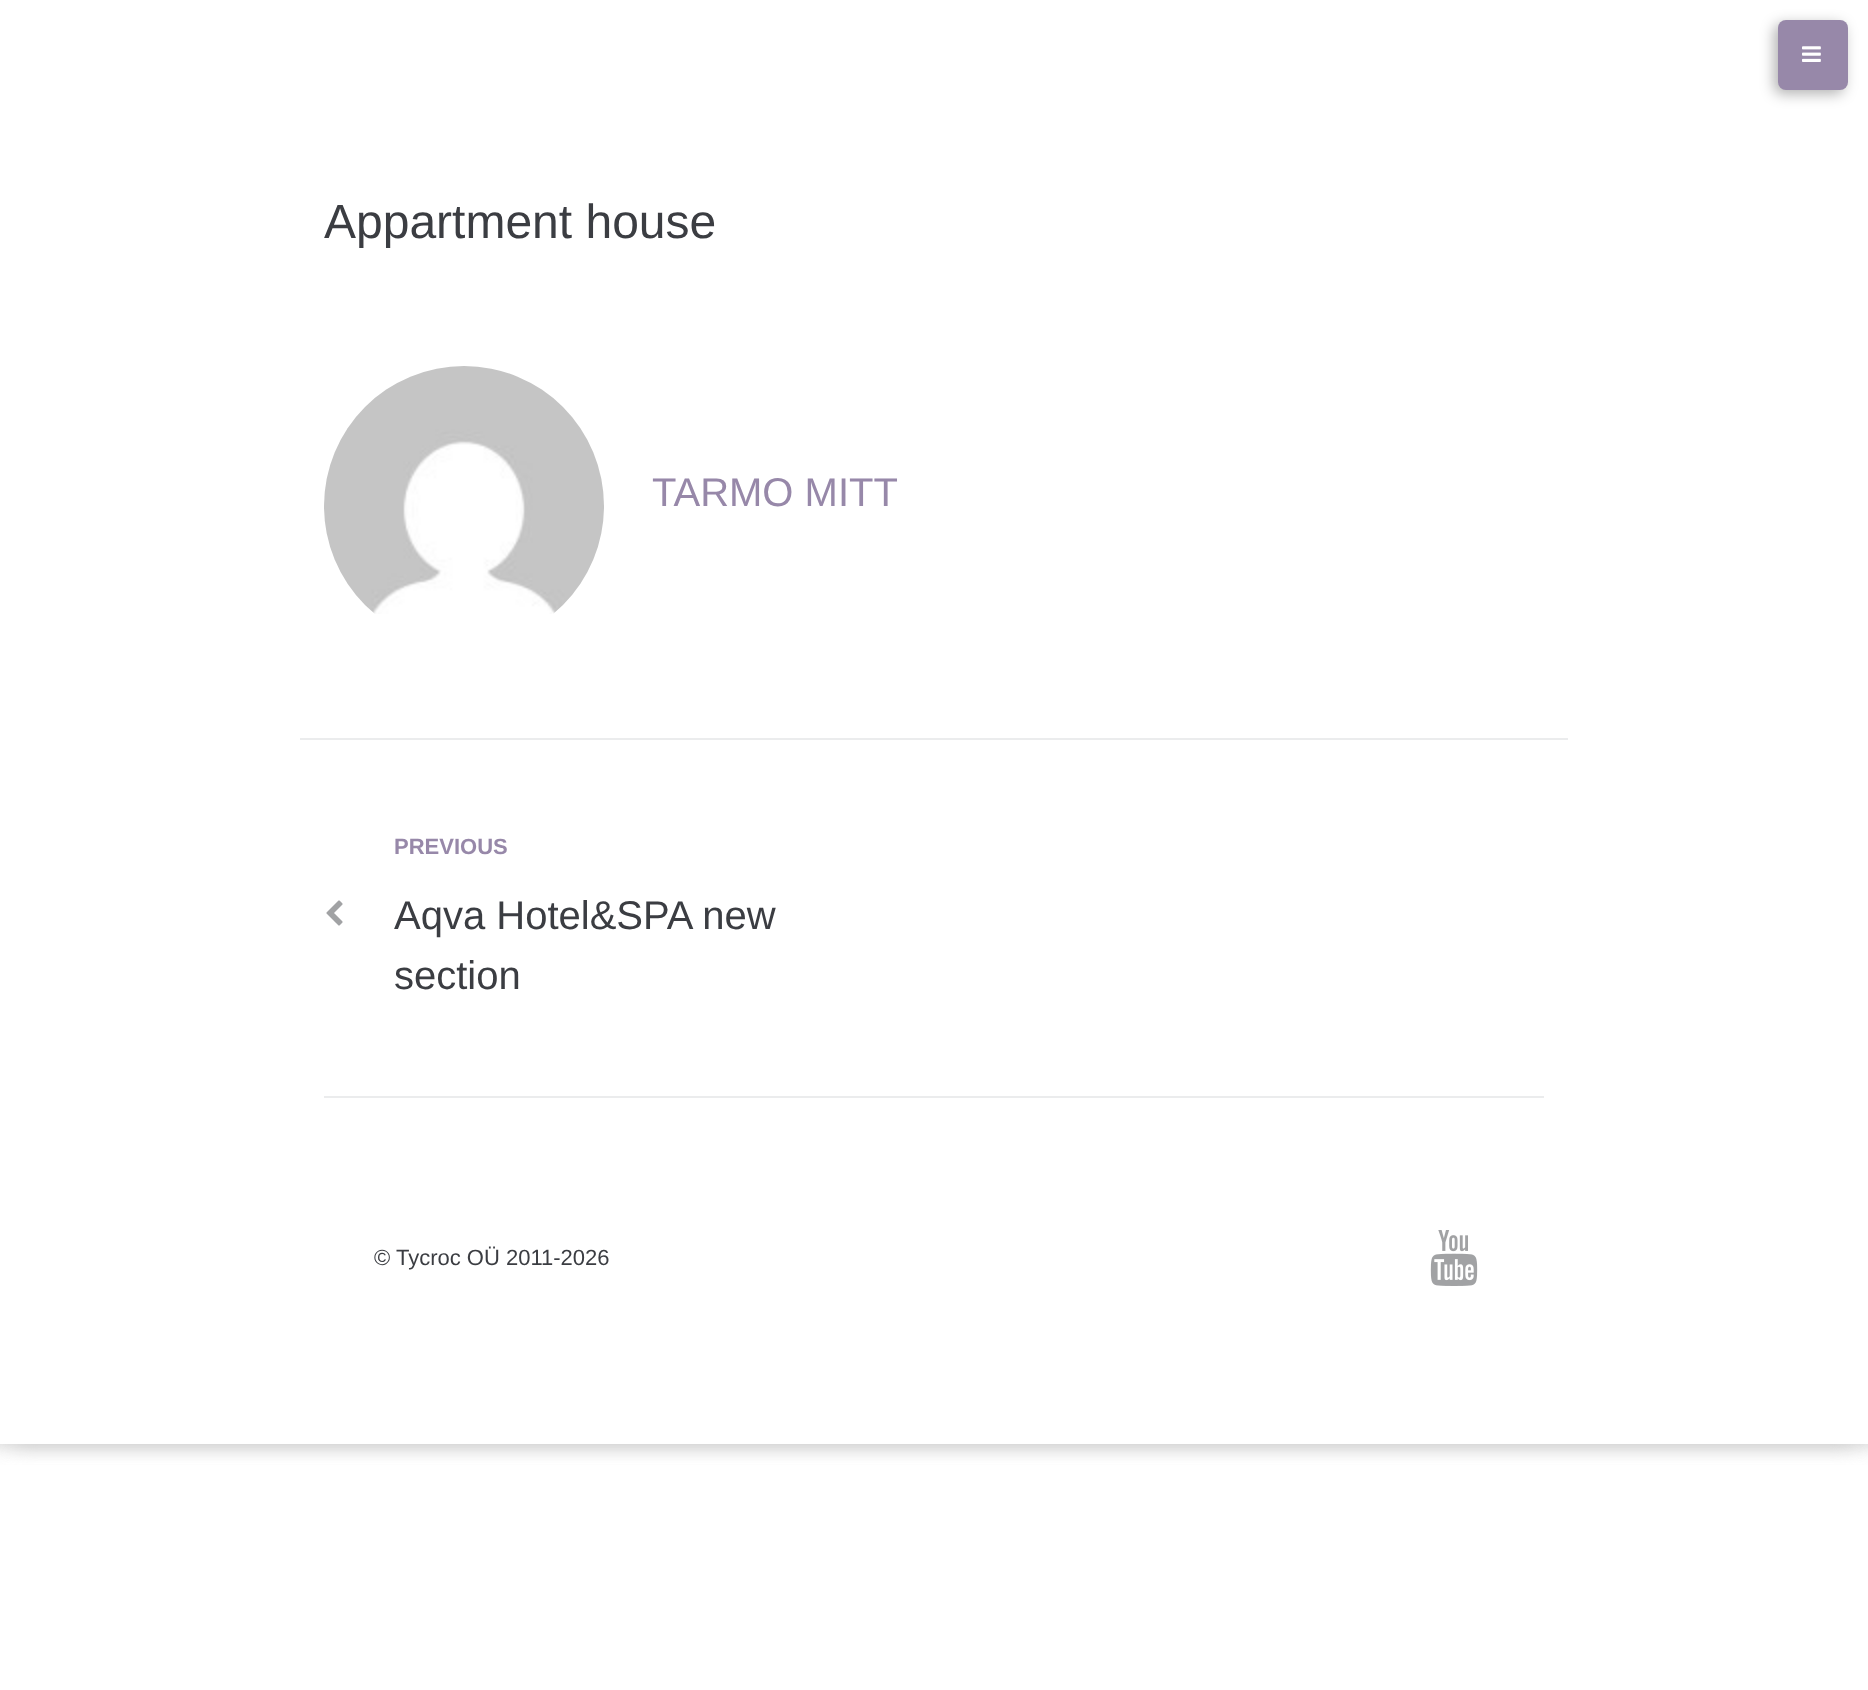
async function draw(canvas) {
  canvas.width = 1868
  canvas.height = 1690
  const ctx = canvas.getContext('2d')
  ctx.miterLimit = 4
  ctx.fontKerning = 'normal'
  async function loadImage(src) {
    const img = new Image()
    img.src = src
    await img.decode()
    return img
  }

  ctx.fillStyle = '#fff'
  ctx.fillRect(0, 0, 1868, 1690)
  ctx.save()
  ctx.beginPath()
  ctx.rect(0, 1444, 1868, 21)
  ctx.clip()
  ctx.fillStyle = '#ccc'
  ctx.filter = 'blur(10px)'
  ctx.beginPath()
  ctx.rect(14, 0, 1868, 1444)
  ctx.fill()
  ctx.filter = 'none'
  ctx.filter = 'blur(10px)'
  ctx.beginPath()
  ctx.rect(-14, 0, 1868, 1444)
  ctx.fill()
  ctx.filter = 'none'
  ctx.restore()
  ctx.fillStyle = '#0000004d'
  ctx.filter = 'blur(7px)'
  ctx.beginPath()
  ctx.roundRect(1774, 24, 70, 70, 8)
  ctx.fill()
  ctx.filter = 'none'
  ctx.fillStyle = '#9788a9'
  ctx.beginPath()
  ctx.roundRect(1778, 20, 70, 70, 8)
  ctx.fill()
  ctx.drawImage(await loadImage('image0.png'), 1802, 46, 19, 16)
  ctx.font = '48px Liberation Sans'
  ctx.fillStyle = '#3b3d42'
  ctx.fillText('Appartment house', 324, 238)
  ctx.fillStyle = '#ebeced'
  ctx.fillRect(300, 738, 1268, 2)
  ctx.drawImage(await loadImage('image1.png'), 324, 366, 280, 248)
  ctx.font = '40px Liberation Sans'
  ctx.fillStyle = '#9788a9'
  ctx.fillText('TARMO MITT', 652, 506)
  ctx.fillStyle = '#ebeced'
  ctx.fillRect(324, 1096, 1220, 2)
  ctx.font = 'bold 22px Liberation Sans'
  ctx.fillStyle = '#9788a9'
  ctx.fillText('PREVIOUS', 394, 854)
  ctx.drawImage(await loadImage('image2.png'), 326, 900, 17, 26)
  ctx.font = '40px Liberation Sans'
  ctx.fillStyle = '#3b3d42'
  ctx.fillText('Aqva Hotel&SPA new', 394, 929)
  ctx.fillText('section', 394, 989)
  ctx.font = '22px Liberation Sans'
  ctx.fillText('© Tycroc OÜ 2011-2026', 374, 1265)
  ctx.drawImage(await loadImage('image3.png'), 1430, 1230, 48, 56)
}

draw(document.querySelector('canvas'))
